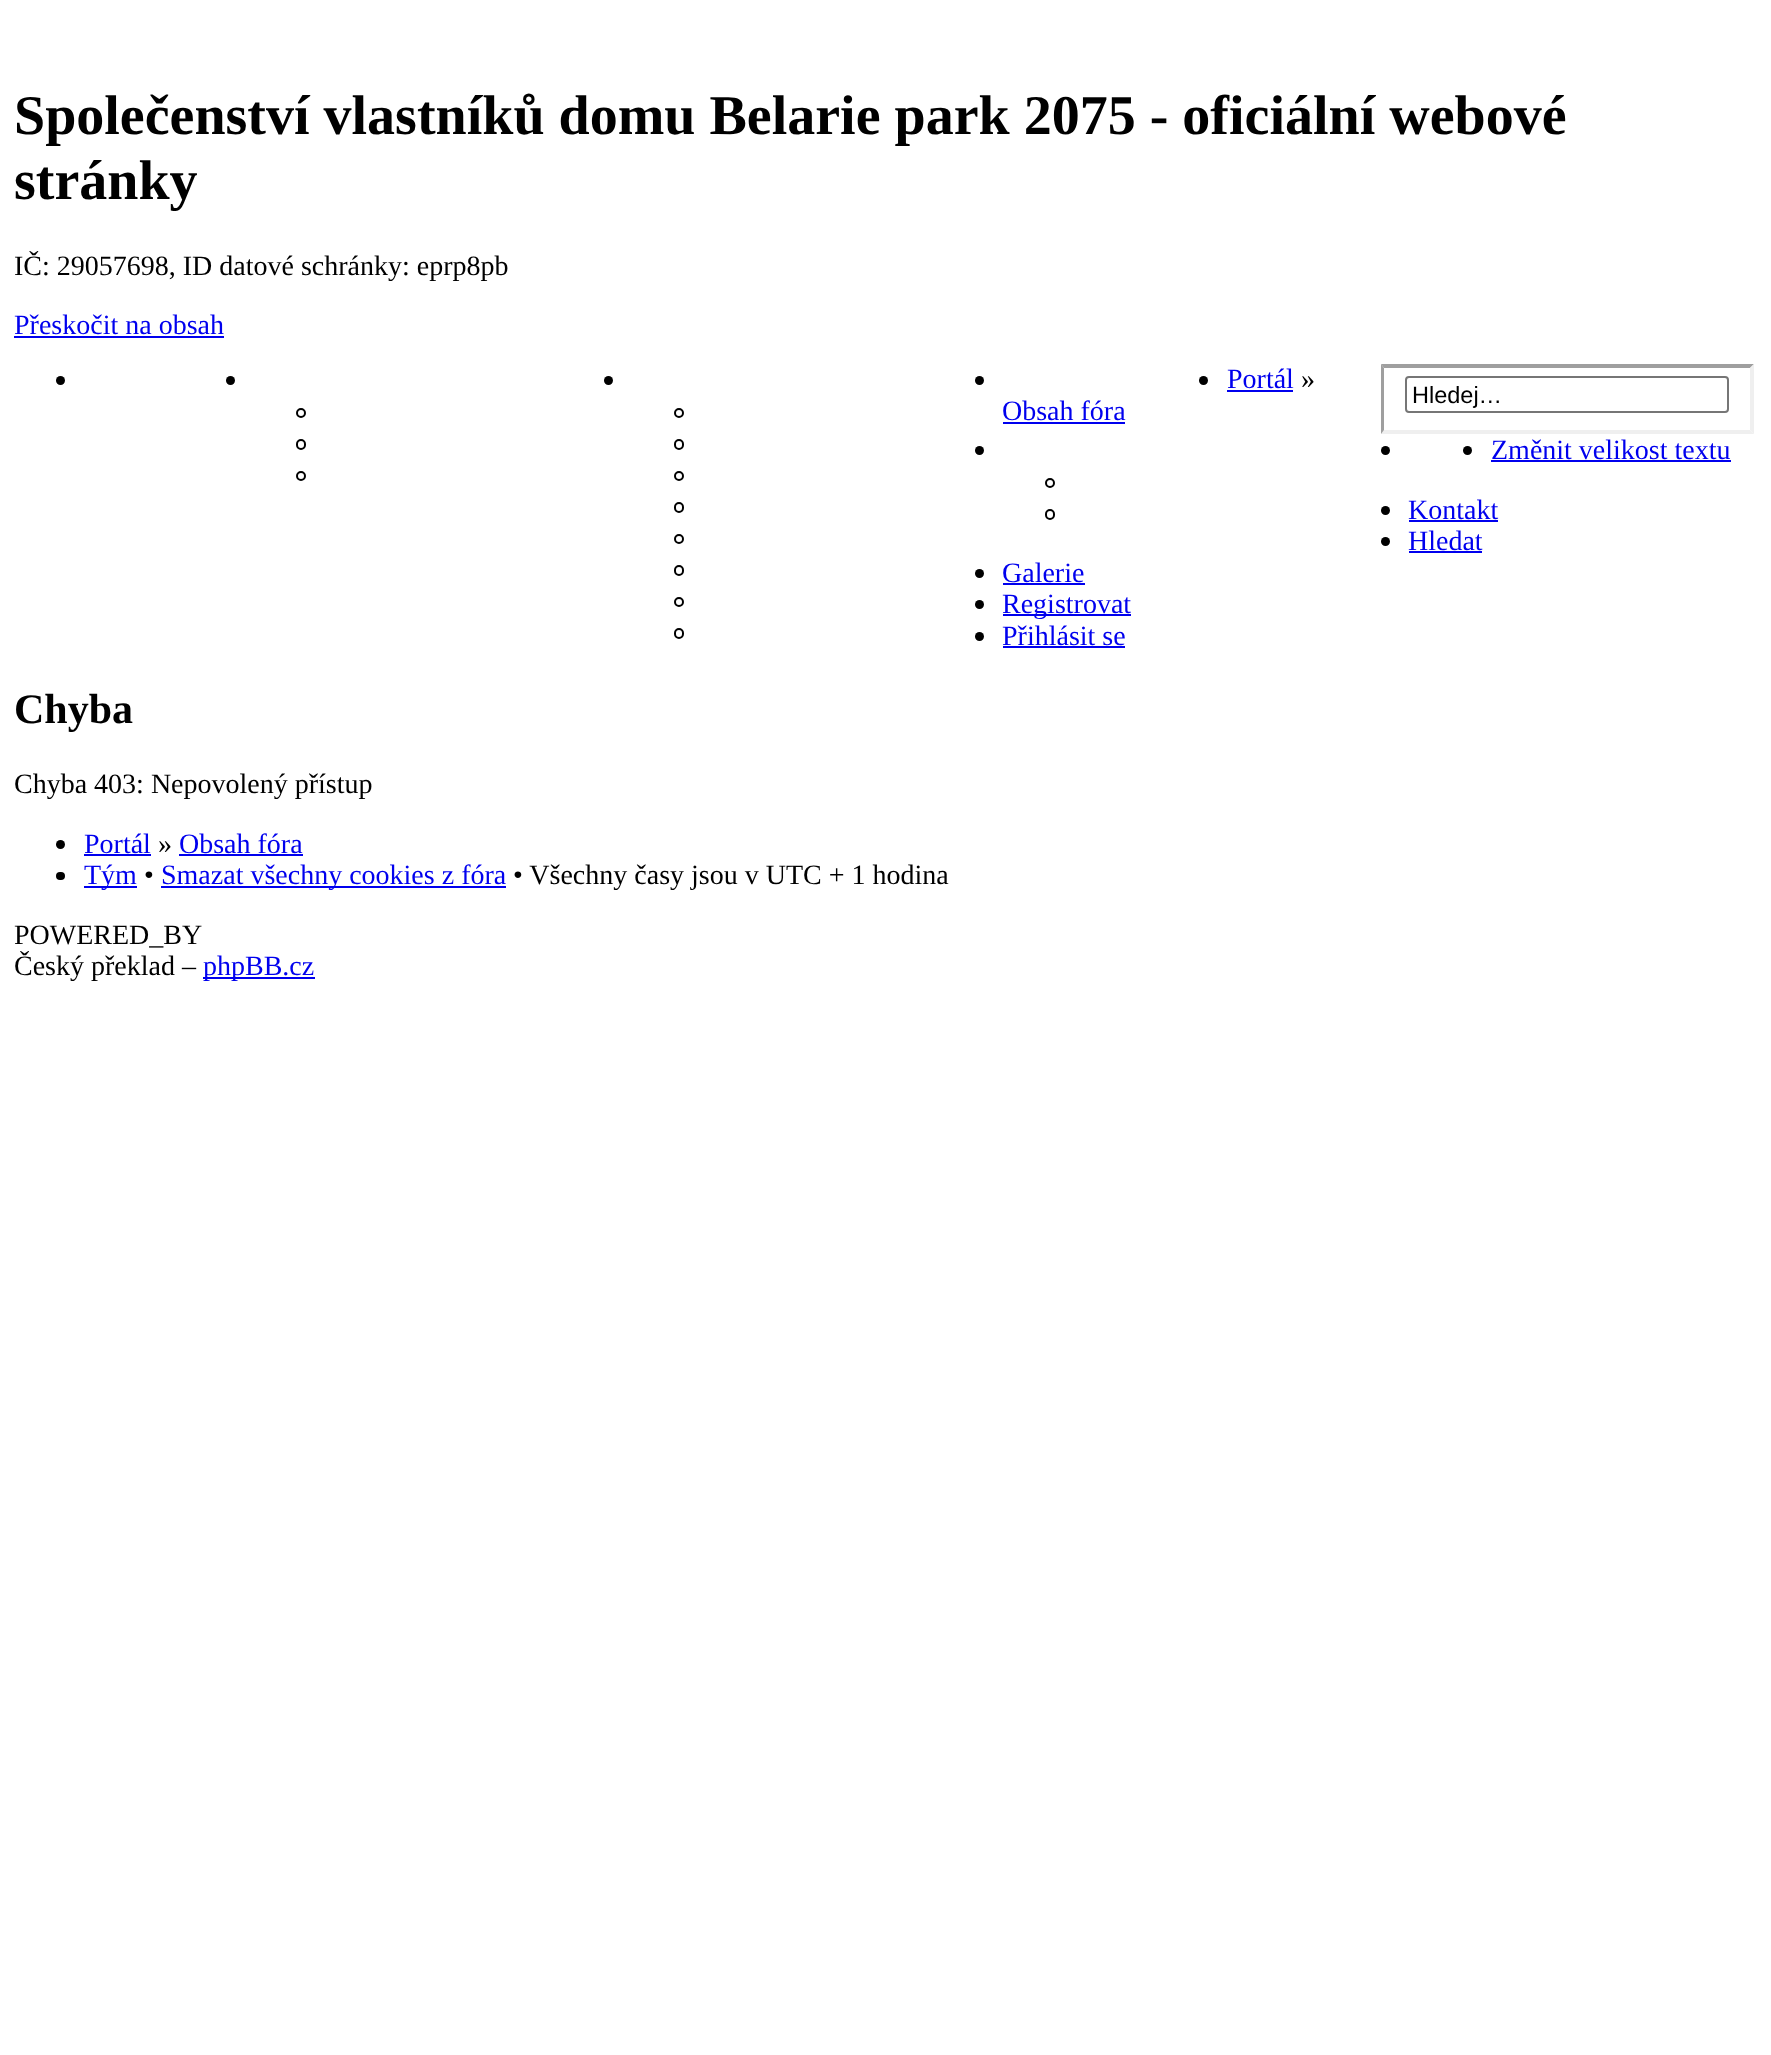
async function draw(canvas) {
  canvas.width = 1771
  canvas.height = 2055
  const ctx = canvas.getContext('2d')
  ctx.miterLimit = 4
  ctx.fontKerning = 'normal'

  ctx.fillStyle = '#fff'
  ctx.fillRect(0, 0, 1771, 2055)
  ctx.font = 'bold 56px Liberation Serif'
  ctx.fillStyle = '#000'
  ctx.fillText('Společenství vlastníků domu Belarie park 2075 - oficiální webové', 14, 134)
  ctx.fillText('stránky', 14, 199)
  ctx.font = '28px Liberation Serif'
  ctx.fillText('IČ: 29057698, ID datové schránky: eprp8pb', 14, 275)
  ctx.fillStyle = '#00e'
  ctx.fillText('Přeskočit na obsah', 14, 334)
  ctx.fillRect(14, 336, 210, 2)
  ctx.fillStyle = '#000'
  ctx.beginPath()
  ctx.arc(1203.5, 380.5, 4.5, 0, 2 * Math.PI)
  ctx.fill()
  ctx.fillStyle = '#00e'
  ctx.fillText('Portál', 1227, 388)
  ctx.fillRect(1227, 390, 66, 2)
  ctx.fillStyle = '#000'
  ctx.fillText('»', 1301, 388)
  ctx.fillStyle = '#00e'
  ctx.fillText('Obsah fóra', 1002, 420)
  ctx.fillRect(1003, 422, 122, 2)
  ctx.fillStyle = '#000'
  ctx.beginPath()
  ctx.arc(1467.5, 450.5, 4.5, 0, 2 * Math.PI)
  ctx.fill()
  ctx.fillStyle = '#00e'
  ctx.fillText('Změnit velikost textu', 1491, 459)
  ctx.fillRect(1491, 460, 240, 2)
  ctx.fillStyle = '#000'
  ctx.beginPath()
  ctx.arc(1385.5, 510.5, 4.5, 0, 2 * Math.PI)
  ctx.fill()
  ctx.fillStyle = '#00e'
  ctx.fillText('Kontakt', 1408, 519)
  ctx.fillRect(1409, 520, 89, 2)
  ctx.fillStyle = '#000'
  ctx.beginPath()
  ctx.arc(1385.5, 541.5, 4.5, 0, 2 * Math.PI)
  ctx.fill()
  ctx.fillStyle = '#00e'
  ctx.fillText('Hledat', 1408, 550)
  ctx.fillRect(1409, 551, 73, 2)
  ctx.fillStyle = '#000'
  ctx.beginPath()
  ctx.arc(979.5, 573.5, 4.5, 0, 2 * Math.PI)
  ctx.fill()
  ctx.fillStyle = '#00e'
  ctx.fillText('Galerie', 1002, 582)
  ctx.fillRect(1003, 583, 82, 2)
  ctx.fillStyle = '#000'
  ctx.beginPath()
  ctx.arc(979.5, 604.5, 4.5, 0, 2 * Math.PI)
  ctx.fill()
  ctx.fillStyle = '#00e'
  ctx.fillRect(1003, 614, 128, 2)
  ctx.fillText('Registrovat', 1002, 613)
  ctx.fillStyle = '#000'
  ctx.beginPath()
  ctx.arc(979.5, 636.5, 4.5, 0, 2 * Math.PI)
  ctx.fill()
  ctx.fillStyle = '#00e'
  ctx.fillText('Přihlásit se', 1002, 645)
  ctx.fillRect(1003, 646, 122, 2)
  ctx.fillStyle = '#000'
  ctx.beginPath()
  ctx.arc(60.5, 380.5, 4.5, 0, 2 * Math.PI)
  ctx.fill()
  ctx.beginPath()
  ctx.arc(230.5, 380.5, 4.5, 0, 2 * Math.PI)
  ctx.fill()
  ctx.beginPath()
  ctx.arc(301, 413, 4, 0, 2 * Math.PI)
  ctx.strokeStyle = '#000'
  ctx.lineWidth = 2
  ctx.stroke()
  ctx.beginPath()
  ctx.roundRect(297, 440, 8, 9, 4)
  ctx.stroke()
  ctx.beginPath()
  ctx.arc(301, 476, 4, 0, 2 * Math.PI)
  ctx.stroke()
  ctx.beginPath()
  ctx.arc(608.5, 380.5, 4.5, 0, 2 * Math.PI)
  ctx.fill()
  ctx.beginPath()
  ctx.arc(679, 413, 4, 0, 2 * Math.PI)
  ctx.stroke()
  ctx.beginPath()
  ctx.roundRect(675, 440, 8, 9, 4)
  ctx.stroke()
  ctx.beginPath()
  ctx.arc(679, 476, 4, 0, 2 * Math.PI)
  ctx.stroke()
  ctx.beginPath()
  ctx.roundRect(675, 503, 8, 9, 4)
  ctx.stroke()
  ctx.beginPath()
  ctx.arc(679, 539, 4, 0, 2 * Math.PI)
  ctx.stroke()
  ctx.beginPath()
  ctx.roundRect(675, 566, 8, 9, 4)
  ctx.stroke()
  ctx.beginPath()
  ctx.arc(679, 602, 4, 0, 2 * Math.PI)
  ctx.stroke()
  ctx.beginPath()
  ctx.roundRect(675, 629, 8, 9, 4)
  ctx.stroke()
  ctx.beginPath()
  ctx.arc(979.5, 380.5, 4.5, 0, 2 * Math.PI)
  ctx.fill()
  ctx.beginPath()
  ctx.arc(979.5, 450.5, 4.5, 0, 2 * Math.PI)
  ctx.fill()
  ctx.beginPath()
  ctx.arc(1050, 483, 4, 0, 2 * Math.PI)
  ctx.stroke()
  ctx.beginPath()
  ctx.roundRect(1046, 510, 8, 9, 4)
  ctx.stroke()
  ctx.beginPath()
  ctx.arc(1385.5, 450.5, 4.5, 0, 2 * Math.PI)
  ctx.fill()
  ctx.fillStyle = '#9f9f9f'
  ctx.beginPath()
  ctx.moveTo(1381, 364)
  ctx.lineTo(1754, 364)
  ctx.lineTo(1750, 368)
  ctx.lineTo(1384, 368)
  ctx.closePath()
  ctx.fill()
  ctx.fillStyle = '#efefef'
  ctx.beginPath()
  ctx.moveTo(1754, 364)
  ctx.lineTo(1754, 434)
  ctx.lineTo(1750, 430)
  ctx.lineTo(1750, 368)
  ctx.closePath()
  ctx.fill()
  ctx.beginPath()
  ctx.moveTo(1754, 434)
  ctx.lineTo(1381, 434)
  ctx.lineTo(1384, 430)
  ctx.lineTo(1750, 430)
  ctx.closePath()
  ctx.fill()
  ctx.fillStyle = '#9f9f9f'
  ctx.beginPath()
  ctx.moveTo(1381, 434)
  ctx.lineTo(1381, 364)
  ctx.lineTo(1384, 368)
  ctx.lineTo(1384, 430)
  ctx.closePath()
  ctx.fill()
  ctx.beginPath()
  ctx.roundRect(1406, 377, 322, 35, 3)
  ctx.strokeStyle = '#767676'
  ctx.stroke()
  ctx.font = '23.5px Liberation Sans'
  ctx.fillStyle = '#000'
  ctx.fillText('Hledej…', 1412, 403)
  ctx.font = 'bold 42px Liberation Serif'
  ctx.fillText('Chyba', 14, 723)
  ctx.font = '28px Liberation Serif'
  ctx.fillText('Chyba 403: Nepovolený přístup', 14, 793)
  ctx.beginPath()
  ctx.arc(60.5, 844.5, 4.5, 0, 2 * Math.PI)
  ctx.fill()
  ctx.fillStyle = '#00e'
  ctx.fillText('Portál', 84, 853)
  ctx.fillRect(84, 854, 67, 2)
  ctx.fillStyle = '#000'
  ctx.fillText('»', 158, 853)
  ctx.fillStyle = '#00e'
  ctx.fillText('Obsah fóra', 179, 853)
  ctx.fillRect(179, 854, 124, 2)
  ctx.fillStyle = '#000'
  ctx.beginPath()
  ctx.roundRect(56, 872, 9, 8, 4)
  ctx.fill()
  ctx.fillStyle = '#00e'
  ctx.fillRect(84, 886, 53, 2)
  ctx.fillText('Tým', 84, 884)
  ctx.fillStyle = '#000'
  ctx.fillText('•', 144, 884)
  ctx.fillStyle = '#00e'
  ctx.fillRect(161, 886, 345, 2)
  ctx.fillText('Smazat všechny cookies z fóra', 161, 884)
  ctx.fillStyle = '#000'
  ctx.fillText('• Všechny časy jsou v UTC + 1 hodina', 513, 884)
  ctx.fillText('POWERED_BY', 14, 944)
  ctx.fillText('Český překlad –', 14, 975)
  ctx.fillStyle = '#00e'
  ctx.fillRect(203, 977, 112, 2)
  ctx.fillText('phpBB.cz', 203, 975)
}

draw(document.querySelector('canvas'))
